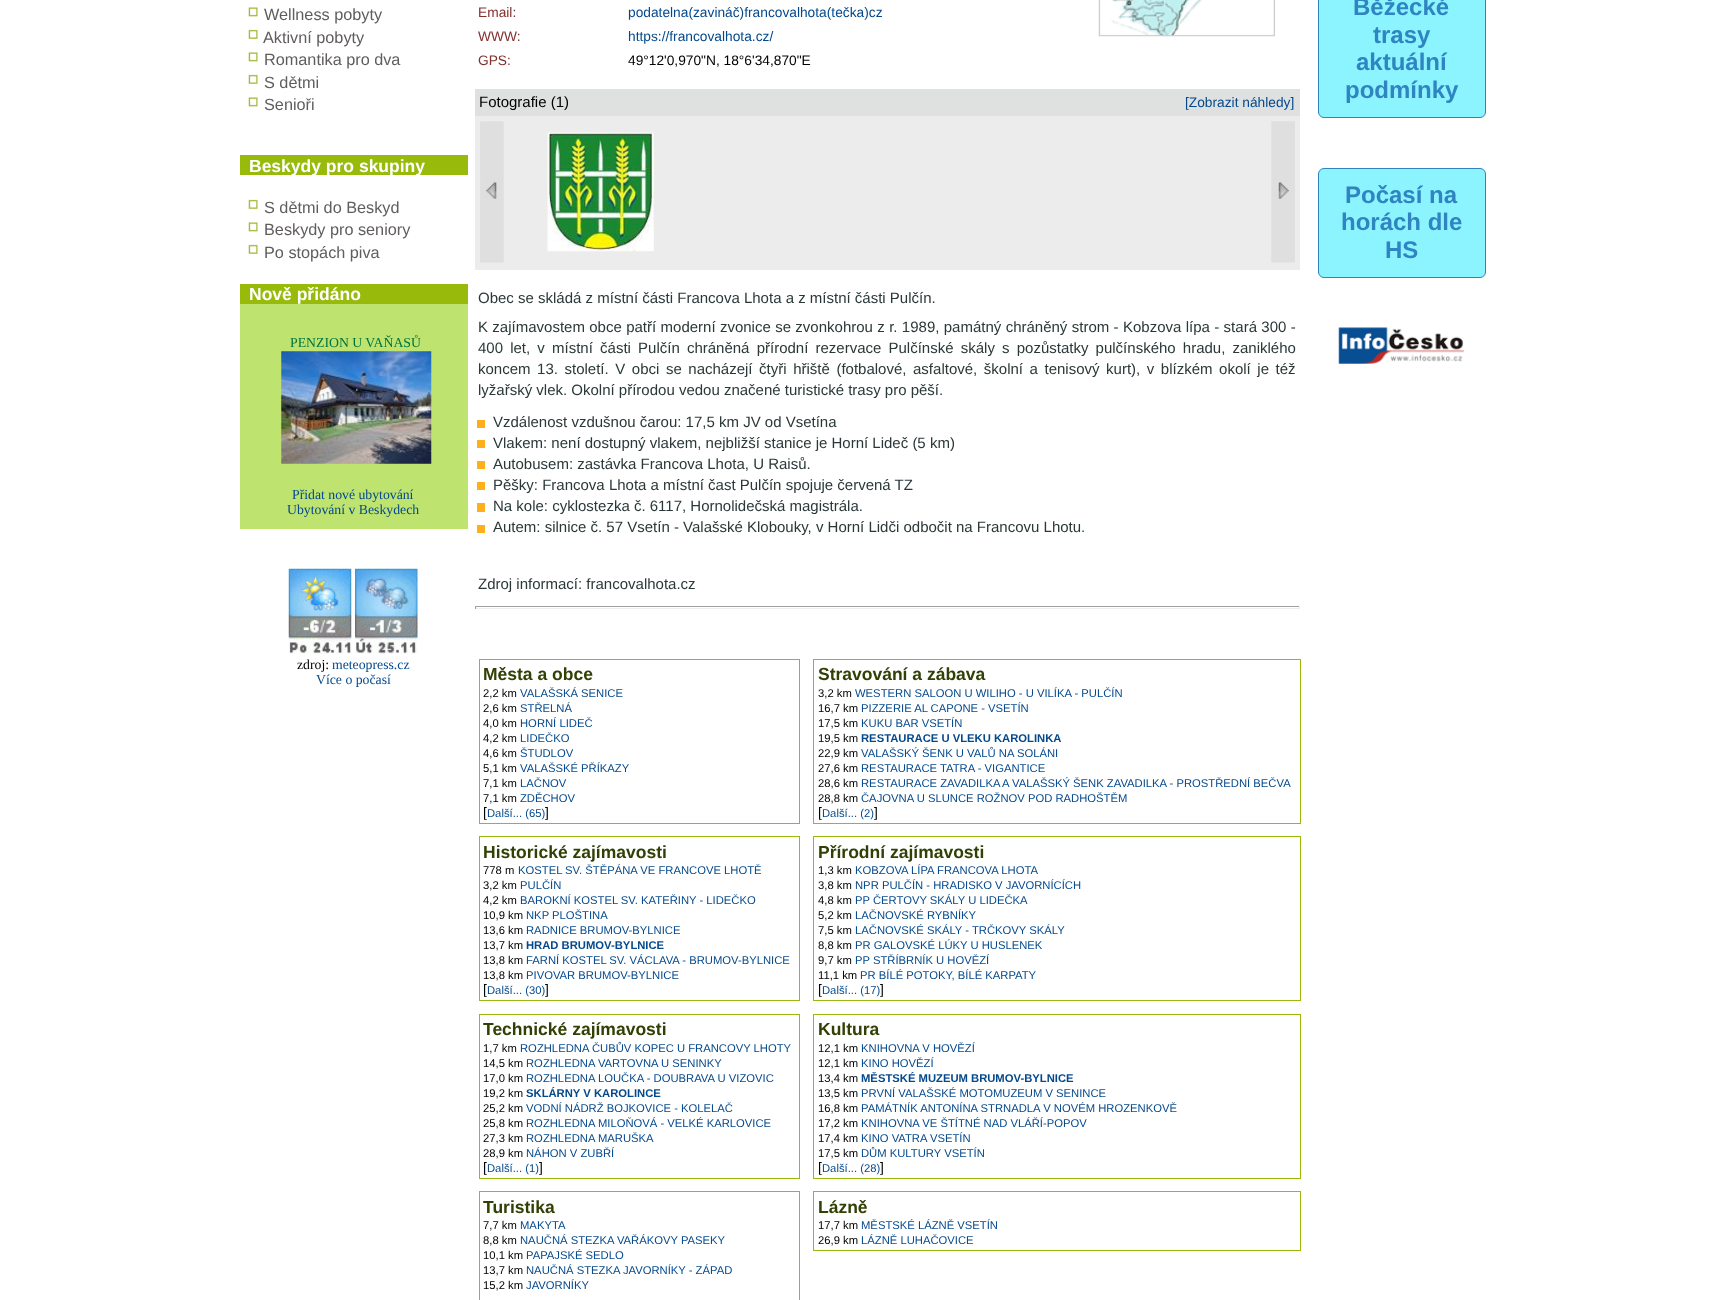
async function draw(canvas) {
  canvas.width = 1734
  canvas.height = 1300
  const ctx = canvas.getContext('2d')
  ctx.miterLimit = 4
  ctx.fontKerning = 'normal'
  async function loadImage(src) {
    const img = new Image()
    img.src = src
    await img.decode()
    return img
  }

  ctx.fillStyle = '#fff'
  ctx.fillRect(0, 0, 1734, 1300)
  ctx.drawImage(await loadImage('image0.png'), 248, 7, 10, 10)
  ctx.font = '16.25px Liberation Sans'
  ctx.fillStyle = '#605d5c'
  ctx.fillText('Wellness pobyty', 264, 20)
  ctx.drawImage(await loadImage('image1.png'), 248, 29, 10, 10)
  ctx.fillText('Aktivní pobyty', 263, 43)
  ctx.drawImage(await loadImage('image0.png'), 248, 52, 10, 10)
  ctx.fillText('Romantika pro dva', 264, 65)
  ctx.drawImage(await loadImage('image1.png'), 248, 74, 10, 10)
  ctx.fillText('S dětmi', 264, 88)
  ctx.drawImage(await loadImage('image0.png'), 248, 97, 10, 10)
  ctx.fillText('Senioři', 264, 110)
  ctx.fillStyle = '#97ba0b'
  ctx.fillRect(240, 155, 228, 20)
  ctx.font = 'bold 17.5px Liberation Sans'
  ctx.fillStyle = '#fff'
  ctx.fillText('Beskydy pro skupiny', 249, 172)
  ctx.drawImage(await loadImage('image1.png'), 248, 199, 10, 10)
  ctx.font = '16.25px Liberation Sans'
  ctx.fillStyle = '#605d5c'
  ctx.fillText('S dětmi do Beskyd', 264, 213)
  ctx.drawImage(await loadImage('image0.png'), 248, 222, 10, 10)
  ctx.fillText('Beskydy pro seniory', 264, 235)
  ctx.drawImage(await loadImage('image1.png'), 248, 244, 10, 10)
  ctx.fillText('Po stopách piva', 264, 258)
  ctx.fillStyle = '#97ba0b'
  ctx.fillRect(240, 284, 228, 20)
  ctx.font = 'bold 17.5px Liberation Sans'
  ctx.fillStyle = '#fff'
  ctx.fillText('Nově přidáno', 249, 300)
  ctx.fillStyle = '#bee36e'
  ctx.fillRect(240, 304, 228, 225)
  ctx.font = '13.75px Liberation Serif'
  ctx.fillStyle = '#00743f'
  ctx.fillText('PENZION U VAŇASŮ', 290, 347)
  ctx.drawImage(await loadImage('image2.png'), 281, 351, 151, 113)
  ctx.fillStyle = '#04498c'
  ctx.fillText('Přidat nové ubytování', 292, 499)
  ctx.fillText('Ubytování v Beskydech', 287, 514)
  ctx.drawImage(await loadImage('image3.png'), 288, 568, 64, 86)
  ctx.drawImage(await loadImage('image4.png'), 355, 568, 63, 86)
  ctx.fillStyle = '#000'
  ctx.fillText('zdroj:', 297, 669)
  ctx.fillStyle = '#04498c'
  ctx.fillText('meteopress.cz', 332, 669)
  ctx.fillText('Více o počasí', 316, 684)
  ctx.font = '13.75px Liberation Sans'
  ctx.fillStyle = '#80312e'
  ctx.fillText('Email:', 478, 17)
  ctx.fillStyle = '#04498c'
  ctx.fillText('podatelna(zavináč)francovalhota(tečka)cz', 628, 17)
  ctx.fillStyle = '#80312e'
  ctx.fillText('WWW:', 478, 41)
  ctx.fillStyle = '#04498c'
  ctx.fillText('https://francovalhota.cz/', 628, 41)
  ctx.fillStyle = '#80312e'
  ctx.fillText('GPS:', 478, 65)
  ctx.fillStyle = '#000'
  ctx.fillText('49°12\'0,970"N, 18°6\'34,870"E', 628, 65)
  ctx.drawImage(await loadImage('image5.png'), 1098, 0, 177, 37)
  ctx.fillStyle = '#dfe0e0'
  ctx.fillRect(475, 89, 825, 27)
  ctx.font = '15px Liberation Sans'
  ctx.fillStyle = '#000'
  ctx.fillText('Fotografie (1)', 479, 107)
  ctx.font = '13.75px Liberation Sans'
  ctx.fillStyle = '#04498c'
  ctx.fillText('[Zobrazit náhledy]', 1185, 107)
  ctx.fillStyle = '#ececec'
  ctx.fillRect(475, 116, 825, 154)
  ctx.drawImage(await loadImage('image6.png'), 480, 121, 24, 142)
  ctx.drawImage(await loadImage('image7.png'), 547, 132, 107, 120)
  ctx.drawImage(await loadImage('image8.png'), 1271, 121, 24, 142)
  ctx.font = '15px Liberation Sans'
  ctx.fillStyle = '#2b3838'
  ctx.fillText('Obec se skládá z místní části Francova Lhota a z místní části Pulčín.', 478, 303)
  ctx.wordSpacing = '0.2px'
  ctx.fillText('K zajímavostem obce patří moderní zvonice se zvonkohrou z r. 1989, památný chráněný strom - Kobzova lípa - stará 300 -', 478, 332)
  ctx.wordSpacing = '3px'
  ctx.fillText('400 let, v místní části Pulčín chráněná přírodní rezervace Pulčínské skály s pozůstatky pulčínského hradu, zaniklého', 478, 353)
  ctx.wordSpacing = '2.4px'
  ctx.fillText('koncem 13. století. V obci se nacházejí čtyři hřiště (fotbalové, asfaltové, školní a tenisový kurt), v blízkém okolí je též', 478, 374)
  ctx.wordSpacing = '0px'
  ctx.fillText('lyžařský vlek. Okolní přírodou vedou značené turistické trasy pro pěší.', 478, 395)
  ctx.fillStyle = '#ffaf18'
  ctx.fillRect(477, 420, 8, 8)
  ctx.fillStyle = '#2b3838'
  ctx.fillText('Vzdálenost vzdušnou čarou: 17,5 km JV od Vsetína', 493, 427)
  ctx.fillStyle = '#ffaf18'
  ctx.fillRect(477, 440, 8, 8)
  ctx.fillStyle = '#2b3838'
  ctx.fillText('Vlakem: není dostupný vlakem, nejbližší stanice je Horní Lideč (5 km)', 493, 448)
  ctx.fillStyle = '#ffaf18'
  ctx.fillRect(477, 461, 8, 8)
  ctx.fillStyle = '#2b3838'
  ctx.fillText('Autobusem: zastávka Francova Lhota, U Raisů.', 493, 469)
  ctx.fillStyle = '#ffaf18'
  ctx.fillRect(477, 482, 8, 8)
  ctx.fillStyle = '#2b3838'
  ctx.fillText('Pěšky: Francova Lhota a místní čast Pulčín spojuje červená TZ', 493, 490)
  ctx.fillStyle = '#ffaf18'
  ctx.fillRect(477, 503, 8, 9)
  ctx.fillStyle = '#2b3838'
  ctx.fillText('Na kole: cyklostezka č. 6117, Hornolidečská magistrála.', 493, 511)
  ctx.fillStyle = '#ffaf18'
  ctx.fillRect(477, 525, 8, 8)
  ctx.fillStyle = '#2b3838'
  ctx.fillText('Autem: silnice č. 57 Vsetín - Valašské Klobouky, v Horní Lidči odbočit na Francovu Lhotu.', 493, 532)
  ctx.fillText('Zdroj informací: francovalhota.cz', 478, 589)
  ctx.fillStyle = '#9f9f9f'
  ctx.fillRect(475, 606, 825, 1)
  ctx.fillStyle = '#eee'
  ctx.fillRect(1299, 606, 1, 3)
  ctx.fillRect(475, 608, 825, 1)
  ctx.fillStyle = '#9f9f9f'
  ctx.fillRect(475, 606, 1, 3)
  ctx.strokeStyle = '#97ba0b'
  ctx.strokeRect(479.5, 659.5, 320, 164)
  ctx.font = 'bold 17.5px Liberation Sans'
  ctx.fillStyle = '#314004'
  ctx.fillText('Města a obce', 483, 680)
  ctx.font = '11.25px Liberation Sans'
  ctx.fillStyle = '#000'
  ctx.fillText('2,2 km', 483, 697)
  ctx.fillStyle = '#04498c'
  ctx.fillText('VALAŠSKÁ SENICE', 520, 697)
  ctx.fillStyle = '#000'
  ctx.fillText('2,6 km', 483, 712)
  ctx.fillStyle = '#04498c'
  ctx.fillText('STŘELNÁ', 520, 712)
  ctx.fillStyle = '#000'
  ctx.fillText('4,0 km', 483, 727)
  ctx.fillStyle = '#04498c'
  ctx.fillText('HORNÍ LIDEČ', 520, 727)
  ctx.fillStyle = '#000'
  ctx.fillText('4,2 km', 483, 742)
  ctx.fillStyle = '#04498c'
  ctx.fillText('LIDEČKO', 520, 742)
  ctx.fillStyle = '#000'
  ctx.fillText('4,6 km', 483, 757)
  ctx.fillStyle = '#04498c'
  ctx.fillText('ŠTUDLOV', 520, 757)
  ctx.fillStyle = '#000'
  ctx.fillText('5,1 km', 483, 772)
  ctx.fillStyle = '#04498c'
  ctx.fillText('VALAŠSKÉ PŘÍKAZY', 520, 772)
  ctx.fillStyle = '#000'
  ctx.fillText('7,1 km', 483, 787)
  ctx.fillStyle = '#04498c'
  ctx.fillText('LAČNOV', 520, 787)
  ctx.fillStyle = '#000'
  ctx.fillText('7,1 km', 483, 802)
  ctx.fillStyle = '#04498c'
  ctx.fillText('ZDĚCHOV', 520, 802)
  ctx.font = '13.75px Liberation Sans'
  ctx.fillStyle = '#000'
  ctx.fillText('[', 483, 817)
  ctx.font = '11.25px Liberation Sans'
  ctx.fillStyle = '#04498c'
  ctx.fillText('Další... (65)', 487, 817)
  ctx.font = '13.75px Liberation Sans'
  ctx.fillStyle = '#000'
  ctx.fillText(']', 545, 817)
  ctx.strokeRect(813.5, 659.5, 487, 164)
  ctx.font = 'bold 17.5px Liberation Sans'
  ctx.fillStyle = '#314004'
  ctx.fillText('Stravování a zábava', 818, 680)
  ctx.font = '11.25px Liberation Sans'
  ctx.fillStyle = '#000'
  ctx.fillText('3,2 km', 818, 697)
  ctx.fillStyle = '#04498c'
  ctx.fillText('WESTERN SALOON U WILIHO - U VILÍKA - PULČÍN', 855, 697)
  ctx.fillStyle = '#000'
  ctx.fillText('16,7 km', 818, 712)
  ctx.fillStyle = '#04498c'
  ctx.fillText('PIZZERIE AL CAPONE - VSETÍN', 861, 712)
  ctx.fillStyle = '#000'
  ctx.fillText('17,5 km', 818, 727)
  ctx.fillStyle = '#04498c'
  ctx.fillText('KUKU BAR VSETÍN', 861, 727)
  ctx.fillStyle = '#000'
  ctx.fillText('19,5 km', 818, 742)
  ctx.font = 'bold 11.25px Liberation Sans'
  ctx.fillStyle = '#04498c'
  ctx.fillText('RESTAURACE U VLEKU KAROLINKA', 861, 742)
  ctx.font = '11.25px Liberation Sans'
  ctx.fillStyle = '#000'
  ctx.fillText('22,9 km', 818, 757)
  ctx.fillStyle = '#04498c'
  ctx.fillText('VALAŠSKÝ ŠENK U VALŮ NA SOLÁNI', 861, 757)
  ctx.fillStyle = '#000'
  ctx.fillText('27,6 km', 818, 772)
  ctx.fillStyle = '#04498c'
  ctx.fillText('RESTAURACE TATRA - VIGANTICE', 861, 772)
  ctx.fillStyle = '#000'
  ctx.fillText('28,6 km', 818, 787)
  ctx.fillStyle = '#04498c'
  ctx.fillText('RESTAURACE ZAVADILKA', 861, 787)
  ctx.fillText('A VALAŠSKÝ ŠENK ZAVADILKA - PROSTŘEDNÍ BEČVA', 1002, 787)
  ctx.fillStyle = '#000'
  ctx.fillText('28,8 km', 818, 802)
  ctx.fillStyle = '#04498c'
  ctx.fillText('ČAJOVNA U SLUNCE ROŽNOV POD RADHOŠTĚM', 861, 802)
  ctx.font = '13.75px Liberation Sans'
  ctx.fillStyle = '#000'
  ctx.fillText('[', 818, 817)
  ctx.font = '11.25px Liberation Sans'
  ctx.fillStyle = '#04498c'
  ctx.fillText('Další... (2)', 822, 817)
  ctx.font = '13.75px Liberation Sans'
  ctx.fillStyle = '#000'
  ctx.fillText(']', 874, 817)
  ctx.strokeRect(479.5, 836.5, 320, 164)
  ctx.font = 'bold 17.5px Liberation Sans'
  ctx.fillStyle = '#314004'
  ctx.fillText('Historické zajímavosti', 483, 858)
  ctx.font = '11.25px Liberation Sans'
  ctx.fillStyle = '#000'
  ctx.fillText('778 m', 483, 874)
  ctx.fillStyle = '#04498c'
  ctx.fillText('KOSTEL SV. ŠTĚPÁNA VE FRANCOVE LHOTĚ', 518, 874)
  ctx.fillStyle = '#000'
  ctx.fillText('3,2 km', 483, 889)
  ctx.fillStyle = '#04498c'
  ctx.fillText('PULČÍN', 520, 889)
  ctx.fillStyle = '#000'
  ctx.fillText('4,2 km', 483, 904)
  ctx.fillStyle = '#04498c'
  ctx.fillText('BAROKNÍ KOSTEL SV. KATEŘINY - LIDEČKO', 520, 904)
  ctx.fillStyle = '#000'
  ctx.fillText('10,9 km', 483, 919)
  ctx.fillStyle = '#04498c'
  ctx.fillText('NKP PLOŠTINA', 526, 919)
  ctx.fillStyle = '#000'
  ctx.fillText('13,6 km', 483, 934)
  ctx.fillStyle = '#04498c'
  ctx.fillText('RADNICE BRUMOV-BYLNICE', 526, 934)
  ctx.fillStyle = '#000'
  ctx.fillText('13,7 km', 483, 949)
  ctx.font = 'bold 11.25px Liberation Sans'
  ctx.fillStyle = '#04498c'
  ctx.fillText('HRAD BRUMOV-BYLNICE', 526, 949)
  ctx.font = '11.25px Liberation Sans'
  ctx.fillStyle = '#000'
  ctx.fillText('13,8 km', 483, 964)
  ctx.fillStyle = '#04498c'
  ctx.fillText('FARNÍ KOSTEL SV. VÁCLAVA - BRUMOV-BYLNICE', 526, 964)
  ctx.fillStyle = '#000'
  ctx.fillText('13,8 km', 483, 979)
  ctx.fillStyle = '#04498c'
  ctx.fillText('PIVOVAR BRUMOV-BYLNICE', 526, 979)
  ctx.font = '13.75px Liberation Sans'
  ctx.fillStyle = '#000'
  ctx.fillText('[', 483, 994)
  ctx.font = '11.25px Liberation Sans'
  ctx.fillStyle = '#04498c'
  ctx.fillText('Další... (30)', 487, 994)
  ctx.font = '13.75px Liberation Sans'
  ctx.fillStyle = '#000'
  ctx.fillText(']', 545, 994)
  ctx.strokeRect(813.5, 836.5, 487, 164)
  ctx.font = 'bold 17.5px Liberation Sans'
  ctx.fillStyle = '#314004'
  ctx.fillText('Přírodní zajímavosti', 818, 858)
  ctx.font = '11.25px Liberation Sans'
  ctx.fillStyle = '#000'
  ctx.fillText('1,3 km', 818, 874)
  ctx.fillStyle = '#04498c'
  ctx.fillText('KOBZOVA LÍPA FRANCOVA LHOTA', 855, 874)
  ctx.fillStyle = '#000'
  ctx.fillText('3,8 km', 818, 889)
  ctx.fillStyle = '#04498c'
  ctx.fillText('NPR PULČÍN - HRADISKO V JAVORNÍCÍCH', 855, 889)
  ctx.fillStyle = '#000'
  ctx.fillText('4,8 km', 818, 904)
  ctx.fillStyle = '#04498c'
  ctx.fillText('PP ČERTOVY SKÁLY U LIDEČKA', 855, 904)
  ctx.fillStyle = '#000'
  ctx.fillText('5,2 km', 818, 919)
  ctx.fillStyle = '#04498c'
  ctx.fillText('LAČNOVSKÉ RYBNÍKY', 855, 919)
  ctx.fillStyle = '#000'
  ctx.fillText('7,5 km', 818, 934)
  ctx.fillStyle = '#04498c'
  ctx.fillText('LAČNOVSKÉ SKÁLY - TRČKOVY SKÁLY', 855, 934)
  ctx.fillStyle = '#000'
  ctx.fillText('8,8 km', 818, 949)
  ctx.fillStyle = '#04498c'
  ctx.fillText('PR GALOVSKÉ LÚKY U HUSLENEK', 855, 949)
  ctx.fillStyle = '#000'
  ctx.fillText('9,7 km', 818, 964)
  ctx.fillStyle = '#04498c'
  ctx.fillText('PP STŘÍBRNÍK U HOVĚZÍ', 855, 964)
  ctx.fillStyle = '#000'
  ctx.fillText('11,1 km', 818, 979)
  ctx.fillStyle = '#04498c'
  ctx.fillText('PR BÍLÉ POTOKY, BÍLÉ KARPATY', 860, 979)
  ctx.font = '13.75px Liberation Sans'
  ctx.fillStyle = '#000'
  ctx.fillText('[', 818, 994)
  ctx.font = '11.25px Liberation Sans'
  ctx.fillStyle = '#04498c'
  ctx.fillText('Další... (17)', 822, 994)
  ctx.font = '13.75px Liberation Sans'
  ctx.fillStyle = '#000'
  ctx.fillText(']', 880, 994)
  ctx.strokeRect(479.5, 1014.5, 320, 164)
  ctx.font = 'bold 17.5px Liberation Sans'
  ctx.fillStyle = '#314004'
  ctx.fillText('Technické zajímavosti', 483, 1035)
  ctx.font = '11.25px Liberation Sans'
  ctx.fillStyle = '#000'
  ctx.fillText('1,7 km', 483, 1052)
  ctx.fillStyle = '#04498c'
  ctx.fillText('ROZHLEDNA ČUBŮV KOPEC U FRANCOVY LHOTY', 520, 1052)
  ctx.fillStyle = '#000'
  ctx.fillText('14,5 km', 483, 1067)
  ctx.fillStyle = '#04498c'
  ctx.fillText('ROZHLEDNA VARTOVNA U SENINKY', 526, 1067)
  ctx.fillStyle = '#000'
  ctx.fillText('17,0 km', 483, 1082)
  ctx.fillStyle = '#04498c'
  ctx.fillText('ROZHLEDNA LOUČKA - DOUBRAVA U VIZOVIC', 526, 1082)
  ctx.fillStyle = '#000'
  ctx.fillText('19,2 km', 483, 1097)
  ctx.font = 'bold 11.25px Liberation Sans'
  ctx.fillStyle = '#04498c'
  ctx.fillText('SKLÁRNY V KAROLINCE', 526, 1097)
  ctx.font = '11.25px Liberation Sans'
  ctx.fillStyle = '#000'
  ctx.fillText('25,2 km', 483, 1112)
  ctx.fillStyle = '#04498c'
  ctx.fillText('VODNÍ NÁDRŽ BOJKOVICE - KOLELAČ', 526, 1112)
  ctx.fillStyle = '#000'
  ctx.fillText('25,8 km', 483, 1127)
  ctx.fillStyle = '#04498c'
  ctx.fillText('ROZHLEDNA MILOŇOVÁ - VELKÉ KARLOVICE', 526, 1127)
  ctx.fillStyle = '#000'
  ctx.fillText('27,3 km', 483, 1142)
  ctx.fillStyle = '#04498c'
  ctx.fillText('ROZHLEDNA MARUŠKA', 526, 1142)
  ctx.fillStyle = '#000'
  ctx.fillText('28,9 km', 483, 1157)
  ctx.fillStyle = '#04498c'
  ctx.fillText('NÁHON V ZUBŘÍ', 526, 1157)
  ctx.font = '13.75px Liberation Sans'
  ctx.fillStyle = '#000'
  ctx.fillText('[', 483, 1172)
  ctx.font = '11.25px Liberation Sans'
  ctx.fillStyle = '#04498c'
  ctx.fillText('Další... (1)', 487, 1172)
  ctx.font = '13.75px Liberation Sans'
  ctx.fillStyle = '#000'
  ctx.fillText(']', 539, 1172)
  ctx.strokeRect(813.5, 1014.5, 487, 164)
  ctx.font = 'bold 17.5px Liberation Sans'
  ctx.fillStyle = '#314004'
  ctx.fillText('Kultura', 818, 1035)
  ctx.font = '11.25px Liberation Sans'
  ctx.fillStyle = '#000'
  ctx.fillText('12,1 km', 818, 1052)
  ctx.fillStyle = '#04498c'
  ctx.fillText('KNIHOVNA V HOVĚZÍ', 861, 1052)
  ctx.fillStyle = '#000'
  ctx.fillText('12,1 km', 818, 1067)
  ctx.fillStyle = '#04498c'
  ctx.fillText('KINO HOVĚZÍ', 861, 1067)
  ctx.fillStyle = '#000'
  ctx.fillText('13,4 km', 818, 1082)
  ctx.font = 'bold 11.25px Liberation Sans'
  ctx.fillStyle = '#04498c'
  ctx.fillText('MĚSTSKÉ MUZEUM BRUMOV-BYLNICE', 861, 1082)
  ctx.font = '11.25px Liberation Sans'
  ctx.fillStyle = '#000'
  ctx.fillText('13,5 km', 818, 1097)
  ctx.fillStyle = '#04498c'
  ctx.fillText('PRVNÍ VALAŠSKÉ MOTOMUZEUM V SENINCE', 861, 1097)
  ctx.fillStyle = '#000'
  ctx.fillText('16,8 km', 818, 1112)
  ctx.fillStyle = '#04498c'
  ctx.fillText('PAMÁTNÍK ANTONÍNA STRNADLA V NOVÉM HROZENKOVĚ', 861, 1112)
  ctx.fillStyle = '#000'
  ctx.fillText('17,2 km', 818, 1127)
  ctx.fillStyle = '#04498c'
  ctx.fillText('KNIHOVNA VE ŠTÍTNÉ NAD VLÁŘÍ-POPOV', 861, 1127)
  ctx.fillStyle = '#000'
  ctx.fillText('17,4 km', 818, 1142)
  ctx.fillStyle = '#04498c'
  ctx.fillText('KINO VATRA VSETÍN', 861, 1142)
  ctx.fillStyle = '#000'
  ctx.fillText('17,5 km', 818, 1157)
  ctx.fillStyle = '#04498c'
  ctx.fillText('DŮM KULTURY VSETÍN', 861, 1157)
  ctx.font = '13.75px Liberation Sans'
  ctx.fillStyle = '#000'
  ctx.fillText('[', 818, 1172)
  ctx.font = '11.25px Liberation Sans'
  ctx.fillStyle = '#04498c'
  ctx.fillText('Další... (28)', 822, 1172)
  ctx.font = '13.75px Liberation Sans'
  ctx.fillStyle = '#000'
  ctx.fillText(']', 880, 1172)
  ctx.strokeRect(479.5, 1191.5, 320, 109)
  ctx.font = 'bold 17.5px Liberation Sans'
  ctx.fillStyle = '#314004'
  ctx.fillText('Turistika', 483, 1213)
  ctx.font = '11.25px Liberation Sans'
  ctx.fillStyle = '#000'
  ctx.fillText('7,7 km', 483, 1229)
  ctx.fillStyle = '#04498c'
  ctx.fillText('MAKYTA', 520, 1229)
  ctx.fillStyle = '#000'
  ctx.fillText('8,8 km', 483, 1244)
  ctx.fillStyle = '#04498c'
  ctx.fillText('NAUČNÁ STEZKA VAŘÁKOVY PASEKY', 520, 1244)
  ctx.fillStyle = '#000'
  ctx.fillText('10,1 km', 483, 1259)
  ctx.fillStyle = '#04498c'
  ctx.fillText('PAPAJSKÉ SEDLO', 526, 1259)
  ctx.fillStyle = '#000'
  ctx.fillText('13,7 km', 483, 1274)
  ctx.fillStyle = '#04498c'
  ctx.fillText('NAUČNÁ STEZKA JAVORNÍKY - ZÁPAD', 526, 1274)
  ctx.fillStyle = '#000'
  ctx.fillText('15,2 km', 483, 1289)
  ctx.fillStyle = '#04498c'
  ctx.fillText('JAVORNÍKY', 526, 1289)
  ctx.strokeRect(813.5, 1191.5, 487, 59)
  ctx.font = 'bold 17.5px Liberation Sans'
  ctx.fillStyle = '#314004'
  ctx.fillText('Lázně', 818, 1213)
  ctx.font = '11.25px Liberation Sans'
  ctx.fillStyle = '#000'
  ctx.fillText('17,7 km', 818, 1229)
  ctx.fillStyle = '#04498c'
  ctx.fillText('MĚSTSKÉ LÁZNĚ VSETÍN', 861, 1229)
  ctx.fillStyle = '#000'
  ctx.fillText('26,9 km', 818, 1244)
  ctx.fillStyle = '#04498c'
  ctx.fillText('LÁZNĚ LUHAČOVICE', 861, 1244)
  ctx.fillStyle = '#8bf4ff'
  ctx.beginPath()
  ctx.roundRect(1318.5, -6.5, 167, 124, 5.5)
  ctx.fill()
  ctx.strokeStyle = '#2f84c1'
  ctx.stroke()
  ctx.font = 'bold 24px Liberation Sans'
  ctx.fillStyle = '#2f84c1'
  ctx.fillText('Běžecké', 1353, 15)
  ctx.fillText('trasy', 1373, 43)
  ctx.fillText('aktuální', 1356, 70)
  ctx.fillText('podmínky', 1345, 98)
  ctx.fillStyle = '#8bf4ff'
  ctx.beginPath()
  ctx.roundRect(1318.5, 168.5, 167, 109, 5.5)
  ctx.fill()
  ctx.stroke()
  ctx.fillStyle = '#2f84c1'
  ctx.fillText('Počasí na', 1345, 203)
  ctx.fillText('horách dle', 1341, 230)
  ctx.fillText('HS', 1385, 258)
  ctx.drawImage(await loadImage('image9.png'), 1338, 327, 126, 37)
}

draw(document.querySelector('canvas'))
